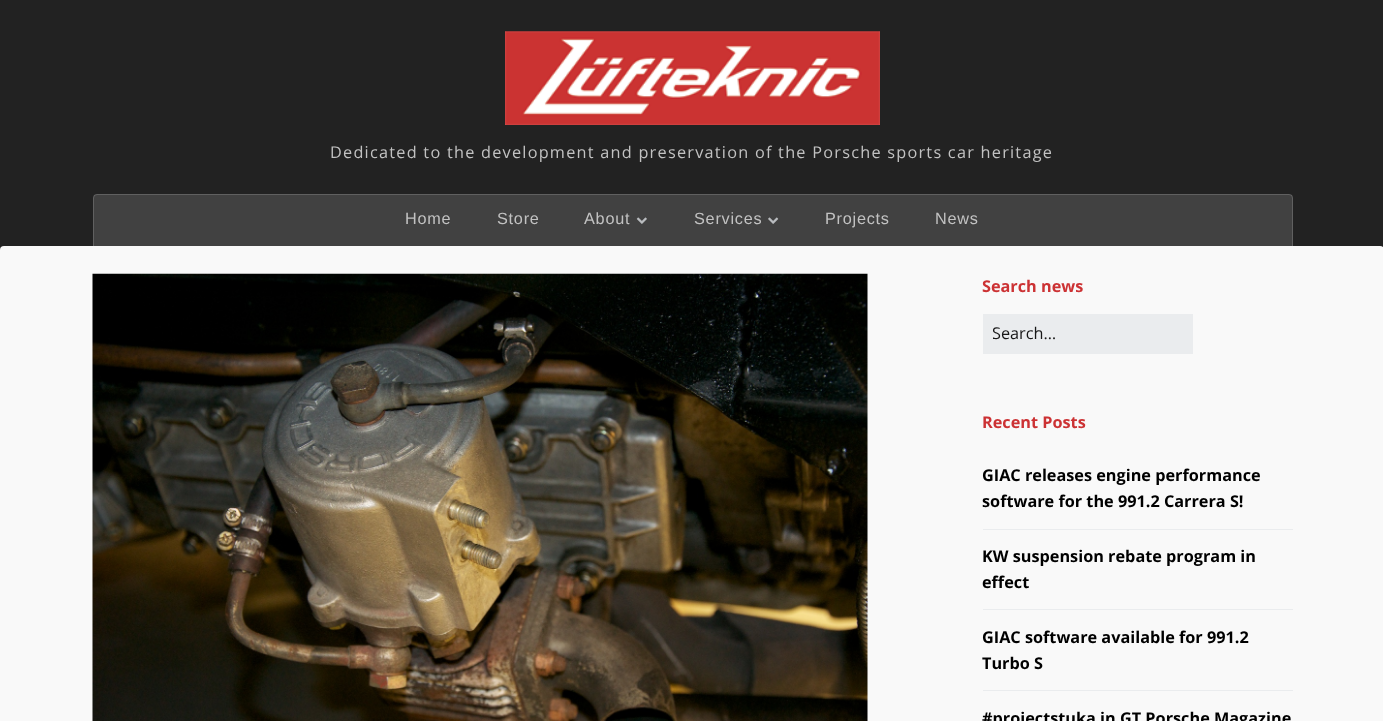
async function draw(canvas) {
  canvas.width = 1383
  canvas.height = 721
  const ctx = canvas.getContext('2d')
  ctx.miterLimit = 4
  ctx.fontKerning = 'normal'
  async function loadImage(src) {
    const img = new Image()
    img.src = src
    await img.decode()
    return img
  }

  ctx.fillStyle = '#222'
  ctx.fillRect(0, 0, 1383, 721)
  ctx.drawImage(await loadImage('image0.png'), 505, 31, 375, 94)
  ctx.letterSpacing = '1.25px'
  ctx.font = '16.25px Open Sans'
  ctx.fillStyle = '#c2c2c2'
  ctx.fillText('Dedicated to the development and preservation of the Porsche sports car heritage', 330, 158)
  ctx.fillStyle = '#414141'
  ctx.beginPath()
  ctx.roundRect(93, 194, 1200, 80, [4, 4, 0, 0])
  ctx.fill()
  ctx.beginPath()
  ctx.roundRect(93.5, 194.5, 1199, 79, [3.5, 3.5, 0, 0])
  ctx.strokeStyle = '#dcdcdc33'
  ctx.stroke()
  ctx.letterSpacing = '0.75px'
  ctx.font = '16.25px Liberation Sans'
  ctx.fillStyle = '#c2c2c2'
  ctx.fillText('Home', 405, 224)
  ctx.fillText('Store', 497, 224)
  ctx.fillText('About', 584, 224)
  ctx.drawImage(await loadImage('image1.png'), 636, 217, 11, 7)
  ctx.fillText('Services', 694, 224)
  ctx.drawImage(await loadImage('image2.png'), 768, 217, 11, 7)
  ctx.fillText('Projects', 825, 224)
  ctx.fillText('News', 935, 224)
  ctx.fillStyle = '#f9f9f9'
  ctx.beginPath()
  ctx.roundRect(0, 246, 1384, 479, 4)
  ctx.fill()
  ctx.drawImage(await loadImage('image3.png'), 92, 273, 776, 448)
  ctx.letterSpacing = '0px'
  ctx.font = 'bold 16.25px Open Sans'
  ctx.fillStyle = '#cc3234'
  ctx.fillText('Search news', 982, 292)
  ctx.fillStyle = '#eaecee'
  ctx.fillRect(983, 314, 210, 40)
  ctx.save()
  ctx.beginPath()
  ctx.rect(993, 323, 185, 22)
  ctx.clip()
  ctx.font = '16.25px Open Sans'
  ctx.fillStyle = '#171717'
  ctx.fillText('Search…', 992, 339)
  ctx.restore()
  ctx.fillStyle = '#cc3234'
  ctx.fillText('Recent Posts', 982, 428)
  ctx.fillStyle = '#eaecee'
  ctx.fillRect(983, 529, 310, 1)
  ctx.fillStyle = '#000'
  ctx.fillText('GIAC releases engine performance', 982, 481)
  ctx.fillText('software for the 991.2 Carrera S!', 982, 507)
  ctx.fillStyle = '#eaecee'
  ctx.fillRect(983, 609, 310, 1)
  ctx.fillStyle = '#000'
  ctx.fillText('KW suspension rebate program in', 982, 562)
  ctx.fillText('effect', 982, 588)
  ctx.fillStyle = '#eaecee'
  ctx.fillRect(983, 690, 310, 1)
  ctx.fillStyle = '#000'
  ctx.fillText('GIAC software available for 991.2', 982, 643)
  ctx.fillText('Turbo S', 982, 669)
  ctx.fillText('#projectstuka in GT Porsche Magazine', 982, 724)
}

draw(document.querySelector('canvas'))
